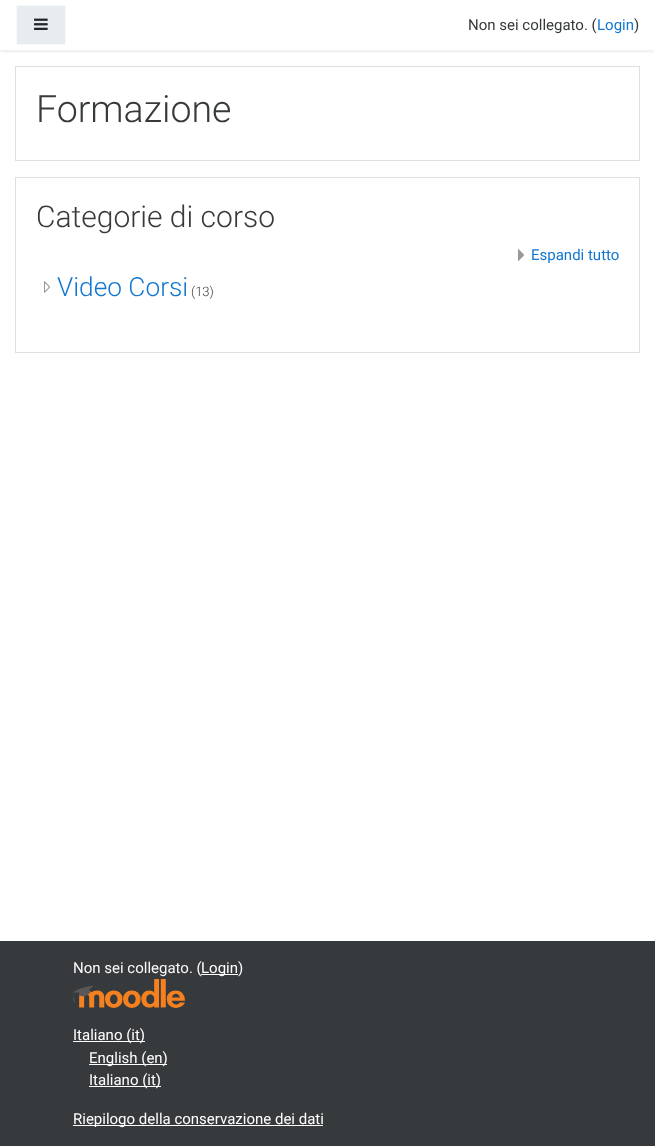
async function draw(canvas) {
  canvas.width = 655
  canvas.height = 1146
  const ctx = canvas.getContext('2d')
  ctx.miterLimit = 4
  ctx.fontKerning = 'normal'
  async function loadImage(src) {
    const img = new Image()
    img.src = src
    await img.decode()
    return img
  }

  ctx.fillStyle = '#fff'
  ctx.fillRect(0, 0, 655, 1146)
  ctx.save()
  ctx.beginPath()
  ctx.rect(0, 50, 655, 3)
  ctx.clip()
  ctx.fillStyle = '#00000014'
  ctx.filter = 'blur(2px)'
  ctx.beginPath()
  ctx.rect(0, 2, 655, 50)
  ctx.fill()
  ctx.filter = 'none'
  ctx.restore()
  ctx.fillStyle = '#e9ecef'
  ctx.beginPath()
  ctx.rect(16.5, 5.5, 49, 39)
  ctx.fill()
  ctx.strokeStyle = '#f8f9fa'
  ctx.stroke()
  ctx.drawImage(await loadImage('image0.png'), 34, 18, 14, 12)
  ctx.font = '15px Roboto'
  ctx.fillStyle = '#373a3c'
  ctx.fillText('Non sei collegato. (', 468, 30)
  ctx.fillStyle = '#1177d1'
  ctx.fillText('Login', 597, 30)
  ctx.fillStyle = '#373a3c'
  ctx.fillText(')', 634, 30)
  ctx.strokeStyle = '#dfdfdf'
  ctx.strokeRect(15.5, 66.5, 624, 94)
  ctx.font = '300 37.5px Roboto'
  ctx.fillText('Formazione', 36, 122)
  ctx.strokeRect(15.5, 177.5, 624, 175)
  ctx.font = '300 30px Roboto'
  ctx.fillText('Categorie di corso', 36, 227)
  ctx.drawImage(await loadImage('image1.png'), 518, 249, 6, 12)
  ctx.font = '15px Roboto'
  ctx.fillStyle = '#1177d1'
  ctx.fillText('Espandi tutto', 531, 260)
  ctx.drawImage(await loadImage('image2.png'), 44, 281, 6, 12)
  ctx.font = '300 26.25px Roboto'
  ctx.fillText('Video Corsi', 57, 296)
  ctx.font = '300 13px Roboto'
  ctx.fillStyle = '#373a3c'
  ctx.fillText('(13)', 191, 296)
  ctx.fillRect(0, 941, 655, 205)
  ctx.font = '15px Roboto'
  ctx.fillStyle = '#f8f9fa'
  ctx.fillText('Non sei collegato. (', 73, 973)
  ctx.fillStyle = '#fff'
  ctx.fillRect(201, 974, 37, 1)
  ctx.fillText('Login', 201, 973)
  ctx.fillStyle = '#f8f9fa'
  ctx.fillText(')', 238, 973)
  ctx.drawImage(await loadImage('image3.png'), 73, 979, 112, 29)
  ctx.fillStyle = '#fff'
  ctx.fillRect(73, 1041, 72, 1)
  ctx.fillText('Italiano (it)', 73, 1040)
  ctx.fillRect(89, 1064, 78, 1)
  ctx.fillText('English (en)', 89, 1063)
  ctx.fillRect(89, 1086, 72, 1)
  ctx.fillText('Italiano (it)', 89, 1085)
  ctx.fillRect(73, 1125, 250, 1)
  ctx.fillText('Riepilogo della conservazione dei dati', 73, 1124)
}

draw(document.querySelector('canvas'))
